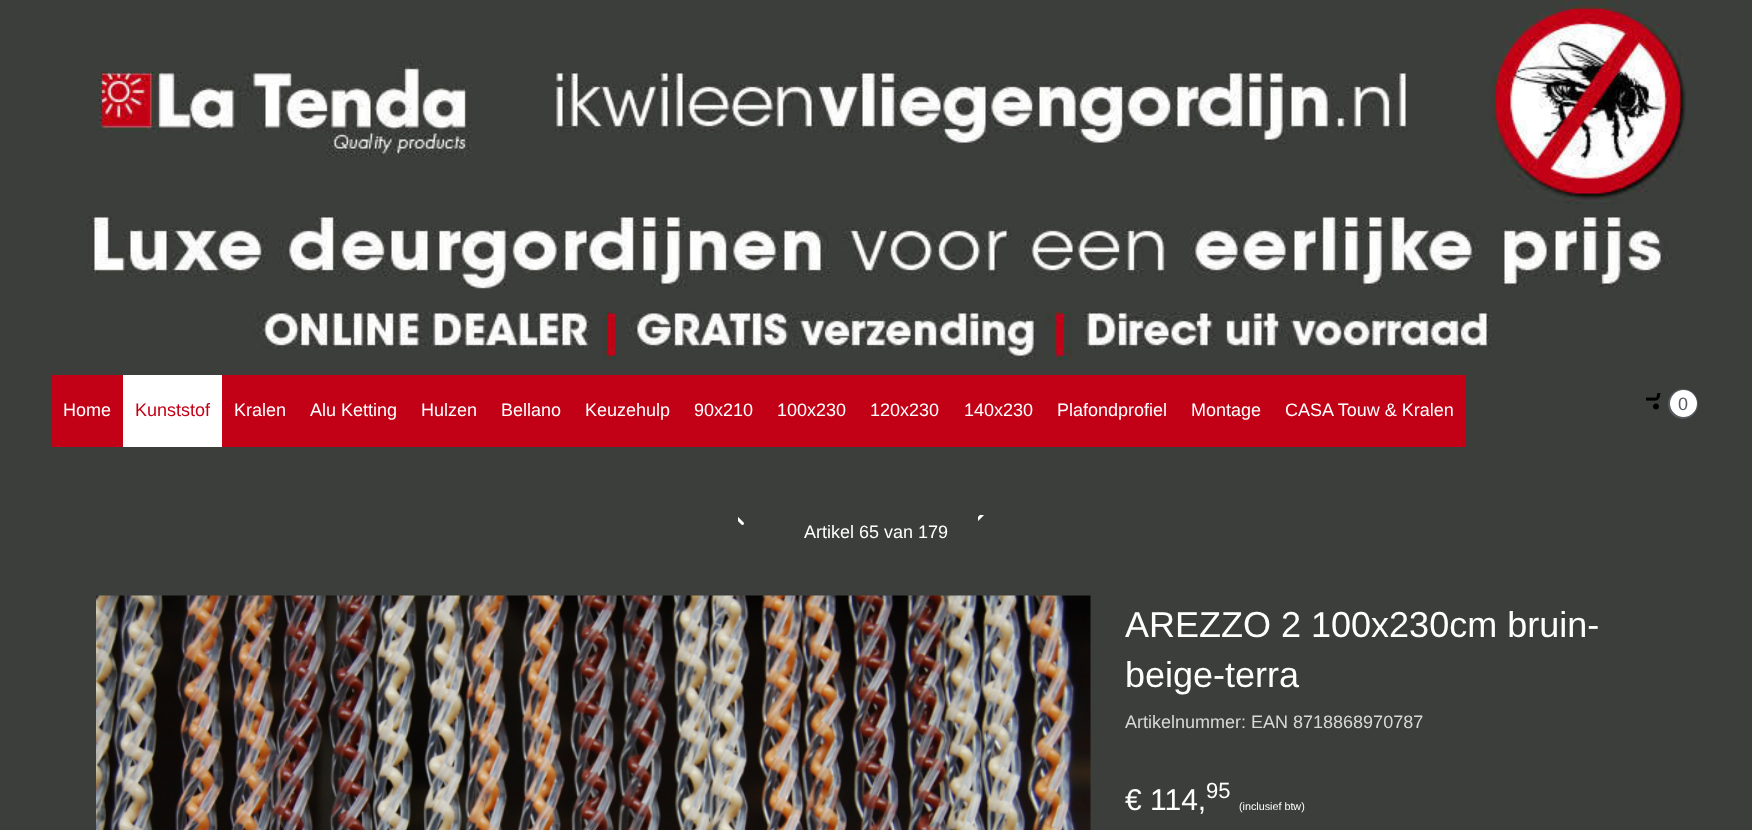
async function draw(canvas) {
  canvas.width = 1752
  canvas.height = 830
  const ctx = canvas.getContext('2d')
  ctx.miterLimit = 4
  ctx.fontKerning = 'normal'
  async function loadImage(src) {
    const img = new Image()
    img.src = src
    await img.decode()
    return img
  }

  ctx.fillStyle = '#3c3e3b'
  ctx.fillRect(0, 0, 1752, 830)
  ctx.drawImage(await loadImage('image0.png'), 87, 0, 1599, 361)
  ctx.fillStyle = '#c20116'
  ctx.fillRect(51, 375, 72, 72)
  ctx.font = '18px Liberation Sans'
  ctx.fillStyle = '#fff'
  ctx.fillText('Home', 63, 416)
  ctx.fillRect(123, 375, 99, 72)
  ctx.fillStyle = '#c20116'
  ctx.fillText('Kunststof', 135, 416)
  ctx.fillRect(222, 375, 1244, 72)
  ctx.fillStyle = '#fff'
  ctx.fillText('Kralen', 234, 416)
  ctx.fillText('Alu Ketting', 310, 416)
  ctx.fillText('Hulzen', 421, 416)
  ctx.fillText('Bellano', 501, 416)
  ctx.fillText('Keuzehulp', 585, 416)
  ctx.fillText('90x210', 694, 416)
  ctx.fillText('100x230', 777, 416)
  ctx.fillText('120x230', 870, 416)
  ctx.fillText('140x230', 964, 416)
  ctx.fillText('Plafondprofiel', 1057, 416)
  ctx.fillText('Montage', 1191, 416)
  ctx.fillText('CASA Touw & Kralen', 1285, 416)
  ctx.drawImage(await loadImage('image1.png'), 1646, 393, 15, 17)
  ctx.beginPath()
  ctx.arc(1683, 404, 14, 0, 2 * Math.PI)
  ctx.strokeStyle = '#575b62'
  ctx.lineWidth = 2
  ctx.stroke()
  ctx.beginPath()
  ctx.arc(1683.5, 403.5, 13.5, 0, 2 * Math.PI)
  ctx.fill()
  ctx.fillStyle = '#575b62'
  ctx.fillText('0', 1678, 410)
  ctx.drawImage(await loadImage('image2.png'), 738, 517, 6, 8)
  ctx.drawImage(await loadImage('image3.png'), 978, 515, 6, 6)
  ctx.fillStyle = '#fff'
  ctx.fillText('Artikel 65 van 179', 804, 538)
  ctx.drawImage(await loadImage('image4.png'), 96, 595, 995, 235)
  ctx.font = '36px Liberation Sans'
  ctx.fillText('AREZZO 2 100x230cm bruin-', 1125, 637)
  ctx.fillText('beige-terra', 1125, 687)
  ctx.font = '18px Liberation Sans'
  ctx.fillStyle = '#d8d8d8'
  ctx.fillText('Artikelnummer: EAN 8718868970787', 1125, 728)
  ctx.font = '30px Liberation Sans'
  ctx.fillStyle = '#fff'
  ctx.fillText('€ 114,', 1125, 810)
  ctx.font = '22px Liberation Sans'
  ctx.fillText('95', 1206, 798)
  ctx.font = '10.75px Liberation Sans'
  ctx.fillText('(inclusief btw)', 1239, 810)
}

draw(document.querySelector('canvas'))
